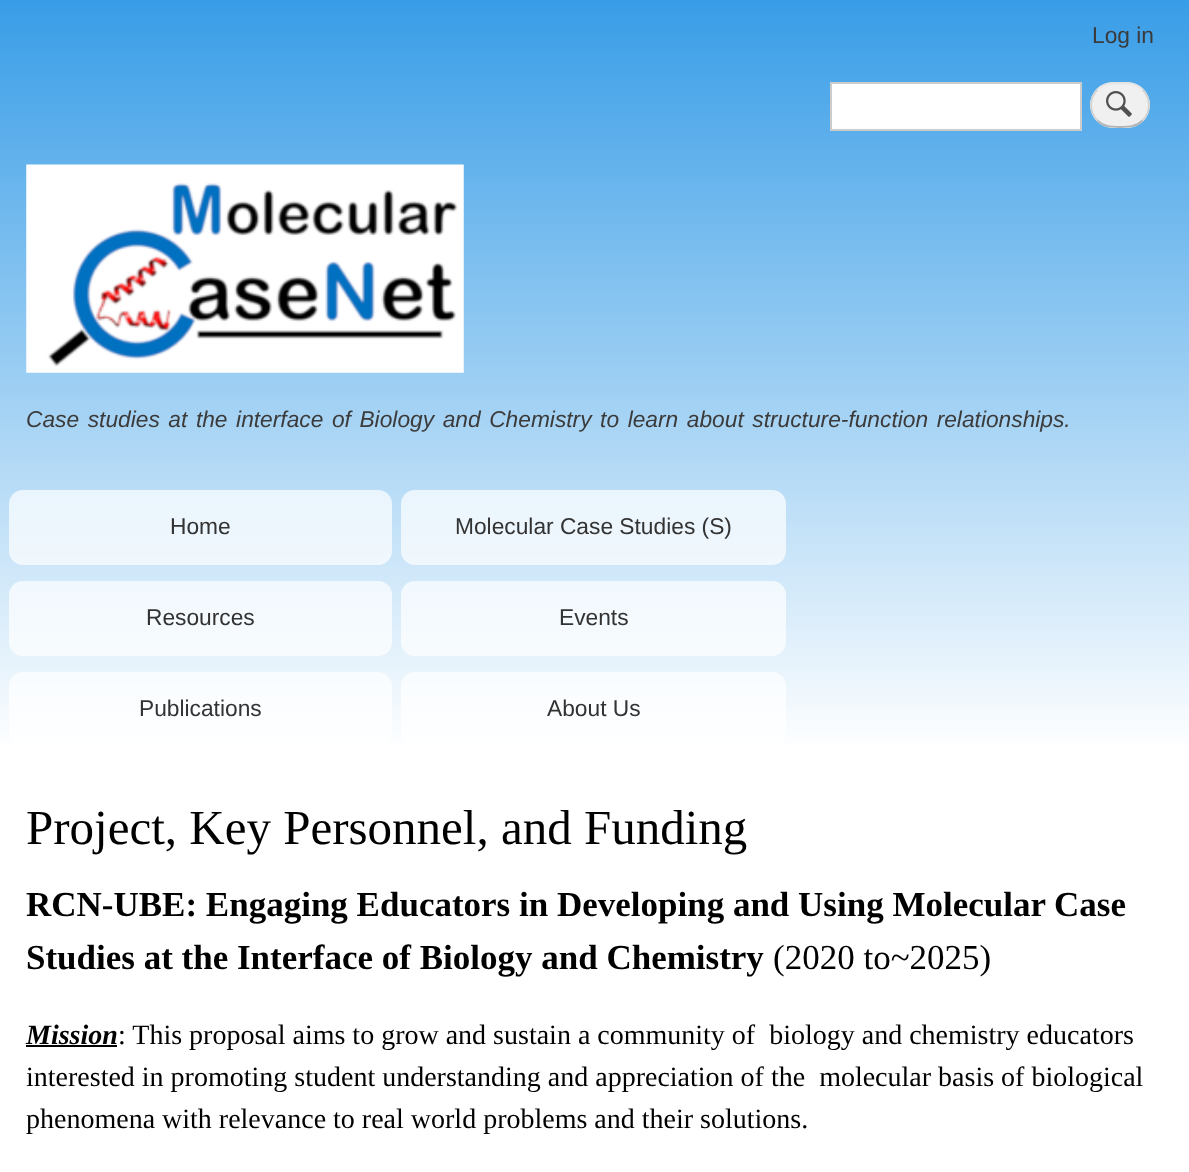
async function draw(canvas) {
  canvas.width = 1189
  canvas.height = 1172
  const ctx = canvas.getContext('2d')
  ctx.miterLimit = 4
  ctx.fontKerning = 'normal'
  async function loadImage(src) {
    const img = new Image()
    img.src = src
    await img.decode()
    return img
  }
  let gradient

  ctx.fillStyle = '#fff'
  ctx.fillRect(0, 0, 1189, 1172)
  gradient = ctx.createLinearGradient(595, 0, 595, 754)
  gradient.addColorStop(0, '#389de7')
  gradient.addColorStop(1, '#fff')
  ctx.fillStyle = gradient
  ctx.fillRect(0, 0, 1189, 745)
  ctx.font = '22.75px Liberation Sans'
  ctx.fillStyle = '#3b3b3b'
  ctx.fillText('Log in', 1092, 43)
  ctx.fillStyle = '#fff'
  ctx.beginPath()
  ctx.rect(831, 83, 250, 47)
  ctx.fill()
  ctx.strokeStyle = '#ccc'
  ctx.lineWidth = 2
  ctx.stroke()
  ctx.fillStyle = '#f0f0f0'
  ctx.beginPath()
  ctx.roundRect(1090, 82, 60, 46, 23)
  ctx.fill()
  ctx.drawImage(await loadImage('image0.png'), 1106, 91, 26, 26)
  ctx.beginPath()
  ctx.moveTo(1097.5, 89.5)
  ctx.bezierCurveTo(1104, 83, 1111.5, 83, 1120, 83)
  ctx.bezierCurveTo(1128.5, 83, 1136, 83, 1142.5, 89.5)
  ctx.strokeStyle = '#e4e4e4'
  ctx.lineWidth = 1.8
  ctx.stroke()
  ctx.beginPath()
  ctx.moveTo(1142.5, 89.5)
  ctx.bezierCurveTo(1151, 98, 1151, 112, 1142.5, 120.5)
  ctx.strokeStyle = '#d2d2d2'
  ctx.stroke()
  ctx.beginPath()
  ctx.moveTo(1142.5, 120.5)
  ctx.bezierCurveTo(1136, 127, 1128.5, 127, 1120, 127)
  ctx.bezierCurveTo(1111.5, 127, 1104, 127, 1097.5, 120.5)
  ctx.strokeStyle = '#b4b4b4'
  ctx.stroke()
  ctx.beginPath()
  ctx.moveTo(1097.5, 120.5)
  ctx.bezierCurveTo(1089, 112, 1089, 98, 1097.5, 89.5)
  ctx.strokeStyle = '#d2d2d2'
  ctx.stroke()
  ctx.drawImage(await loadImage('image1.png'), 26, 164, 438, 209)
  ctx.wordSpacing = '2.25px'
  ctx.font = 'italic 22.75px Liberation Sans'
  ctx.fillStyle = '#3b3b3b'
  ctx.fillText('Case studies at the interface of Biology and Chemistry to learn about structure-function relationships.', 26, 427)
  ctx.fillStyle = '#ffffffb3'
  ctx.beginPath()
  ctx.roundRect(9, 490, 383, 75, 14)
  ctx.fill()
  ctx.wordSpacing = '0px'
  ctx.font = '22.75px Liberation Sans'
  ctx.fillStyle = '#333'
  ctx.fillText('Home', 170, 534)
  ctx.fillStyle = '#ffffffb3'
  ctx.beginPath()
  ctx.roundRect(401, 490, 385, 75, 14)
  ctx.fill()
  ctx.fillStyle = '#333'
  ctx.fillText('Molecular Case Studies (S)', 455, 534)
  ctx.fillStyle = '#ffffffb3'
  ctx.beginPath()
  ctx.roundRect(9, 581, 383, 75, 14)
  ctx.fill()
  ctx.fillStyle = '#333'
  ctx.fillText('Resources', 146, 625)
  ctx.fillStyle = '#ffffffb3'
  ctx.beginPath()
  ctx.roundRect(401, 581, 385, 75, 14)
  ctx.fill()
  ctx.fillStyle = '#333'
  ctx.fillText('Events', 559, 625)
  ctx.fillStyle = '#ffffffb3'
  ctx.beginPath()
  ctx.roundRect(9, 672, 383, 74, 14)
  ctx.fill()
  ctx.fillStyle = '#333'
  ctx.fillText('Publications', 139, 716)
  ctx.fillStyle = '#ffffffb3'
  ctx.beginPath()
  ctx.roundRect(401, 672, 385, 74, 14)
  ctx.fill()
  ctx.fillStyle = '#333'
  ctx.fillText('About Us', 547, 716)
  ctx.font = '49px Liberation Serif'
  ctx.fillStyle = '#000'
  ctx.fillText('Project, Key Personnel, and Funding', 26, 844)
  ctx.font = 'bold 35px Liberation Serif'
  ctx.fillText('RCN-UBE: Engaging Educators in Developing and Using Molecular Case', 26, 916)
  ctx.fillText('Studies at the Interface of Biology and Chemistry', 26, 969)
  ctx.font = '35px Liberation Serif'
  ctx.fillText('(2020 to~2025)', 773, 969)
  ctx.font = 'italic bold 28px Liberation Serif'
  ctx.fillText('Mission', 26, 1044)
  ctx.font = '28px Liberation Serif'
  ctx.fillText(': This proposal aims to grow and sustain a community of  biology and chemistry educators', 118, 1044)
  ctx.fillRect(26, 1045, 91, 2)
  ctx.fillText('interested in promoting student understanding and appreciation of the  molecular basis of biological', 26, 1086)
  ctx.fillText('phenomena with relevance to real world problems and their solutions.', 26, 1128)
}

draw(document.querySelector('canvas'))
